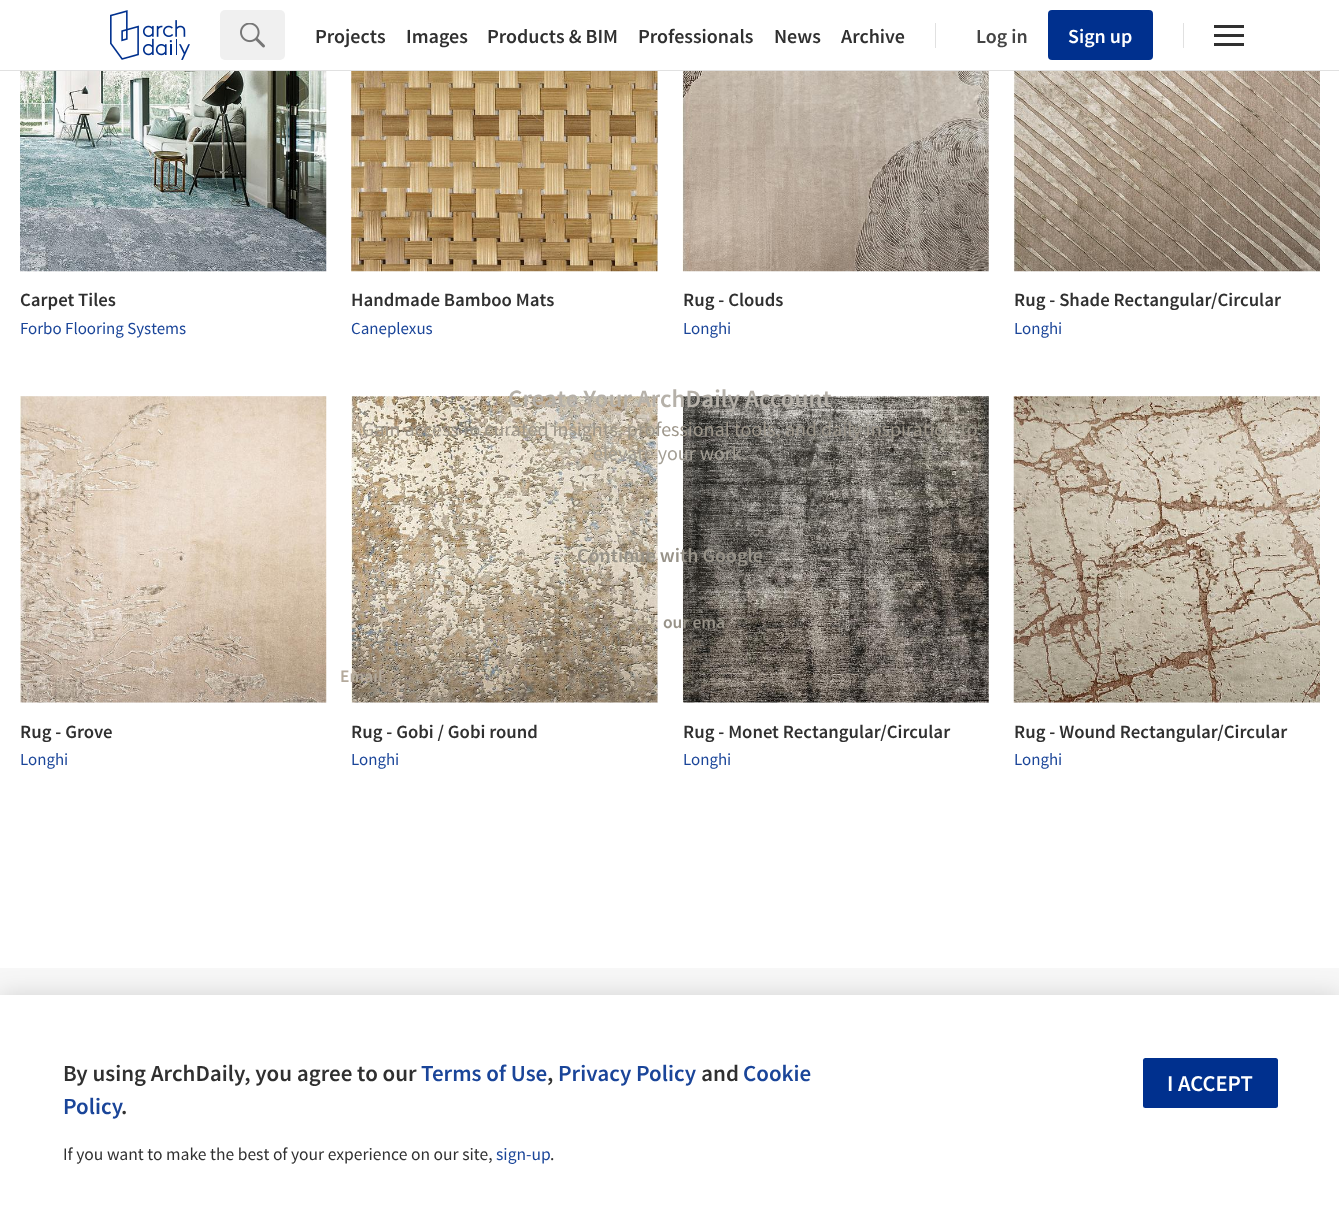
async function draw(canvas) {
  canvas.width = 1339
  canvas.height = 1225
  const ctx = canvas.getContext('2d')
  ctx.miterLimit = 4
  ctx.fontKerning = 'normal'
  async function loadImage(src) {
    const img = new Image()
    img.src = src
    await img.decode()
    return img
  }

  ctx.fillStyle = '#fff'
  ctx.fillRect(0, 0, 1339, 1225)
  ctx.fillStyle = '#e1e1e1'
  ctx.fillRect(0, 70, 1339, 1)
  ctx.drawImage(await loadImage('image0.png'), 110, 10, 80, 50)
  ctx.fillStyle = '#f0f0f0'
  ctx.beginPath()
  ctx.roundRect(220, 10, 65, 50, 5)
  ctx.fill()
  ctx.drawImage(await loadImage('image1.png'), 240, 23, 25, 25)
  ctx.font = '600 20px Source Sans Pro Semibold'
  ctx.fillStyle = '#303030'
  ctx.fillText('Projects', 315, 43)
  ctx.fillText('Images', 406, 43)
  ctx.fillText('Products & BIM', 487, 43)
  ctx.fillText('Professionals', 638, 43)
  ctx.fillText('News', 774, 43)
  ctx.fillText('Archive', 841, 43)
  ctx.fillStyle = '#e1e1e1'
  ctx.fillRect(935, 23, 1, 25)
  ctx.fillStyle = '#444'
  ctx.fillText('Log in', 976, 43)
  ctx.fillStyle = '#00308e'
  ctx.beginPath()
  ctx.roundRect(1048, 10, 105, 50, 4)
  ctx.fill()
  ctx.fillStyle = '#fff'
  ctx.fillText('Sign up', 1068, 43)
  ctx.fillStyle = '#e1e1e1'
  ctx.fillRect(1183, 23, 1, 25)
  ctx.fillStyle = '#303030'
  ctx.fillRect(1214, 34, 30, 3)
  ctx.fillRect(1214, 25, 30, 3)
  ctx.fillRect(1214, 43, 30, 3)
  ctx.fillStyle = '#f7f7f7'
  ctx.fillRect(0, 968, 1339, 27)
  ctx.fillStyle = '#00000026'
  ctx.filter = 'blur(12.5px)'
  ctx.beginPath()
  ctx.rect(0, 995, 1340, 230)
  ctx.fill()
  ctx.filter = 'none'
  ctx.fillStyle = '#fff'
  ctx.fillRect(0, 995, 1339, 230)
  ctx.font = '600 23px Source Sans Pro Semibold'
  ctx.fillStyle = '#303030'
  ctx.fillText('By using ArchDaily, you agree to our', 63, 1081)
  ctx.fillStyle = '#1a4599'
  ctx.fillText('Terms of Use', 421, 1081)
  ctx.fillStyle = '#303030'
  ctx.fillText(',', 547, 1081)
  ctx.fillStyle = '#1a4599'
  ctx.fillText('Privacy Policy', 558, 1081)
  ctx.fillStyle = '#303030'
  ctx.fillText('and', 701, 1081)
  ctx.fillStyle = '#1a4599'
  ctx.fillText('Cookie', 743, 1081)
  ctx.fillText('Policy', 63, 1114)
  ctx.fillStyle = '#303030'
  ctx.fillText('.', 121, 1114)
  ctx.font = '17.5px Source Sans Pro'
  ctx.fillText('If you want to make the best of your experience on our site,', 63, 1160)
  ctx.fillStyle = '#1a4599'
  ctx.fillText('sign-up', 496, 1160)
  ctx.fillStyle = '#303030'
  ctx.fillText('.', 550, 1160)
  ctx.fillStyle = '#00308e'
  ctx.beginPath()
  ctx.roundRect(1143, 1058, 135, 50, 2.5)
  ctx.fill()
  ctx.font = '600 22.5px Source Sans Pro Semibold'
  ctx.fillStyle = '#fff'
  ctx.fillText('I ACCEPT', 1167, 1091)
  ctx.drawImage(await loadImage('image2.png'), 20, 71, 307, 201)
  ctx.font = '600 18.75px Source Sans Pro Semibold'
  ctx.fillStyle = '#303030'
  ctx.fillText('Carpet Tiles', 20, 306)
  ctx.font = '16.9px Source Sans Pro'
  ctx.fillStyle = '#1a4599'
  ctx.fillText('Forbo Flooring Systems', 20, 334)
  ctx.fillStyle = '#f7f7f7'
  ctx.fillRect(351, 71, 307, 200)
  ctx.drawImage(await loadImage('image3.png'), 351, 71, 307, 201)
  ctx.font = '600 18.75px Source Sans Pro Semibold'
  ctx.fillStyle = '#303030'
  ctx.fillText('Handmade Bamboo Mats', 351, 306)
  ctx.font = '16.9px Source Sans Pro'
  ctx.fillStyle = '#1a4599'
  ctx.fillText('Caneplexus', 351, 334)
  ctx.drawImage(await loadImage('image4.png'), 682, 71, 307, 201)
  ctx.font = '600 18.75px Source Sans Pro Semibold'
  ctx.fillStyle = '#303030'
  ctx.fillText('Rug - Clouds', 683, 306)
  ctx.font = '16.9px Source Sans Pro'
  ctx.fillStyle = '#1a4599'
  ctx.fillText('Longhi', 683, 334)
  ctx.drawImage(await loadImage('image5.png'), 1013, 71, 307, 201)
  ctx.font = '600 18.75px Source Sans Pro Semibold'
  ctx.fillStyle = '#303030'
  ctx.fillText('Rug - Shade Rectangular/Circular', 1014, 306)
  ctx.font = '16.9px Source Sans Pro'
  ctx.fillStyle = '#1a4599'
  ctx.fillText('Longhi', 1014, 334)
  ctx.fillStyle = '#f7f7f7'
  ctx.fillRect(20, 396, 306, 307)
  ctx.drawImage(await loadImage('image6.png'), 20, 396, 307, 307)
  ctx.font = '600 18.75px Source Sans Pro Semibold'
  ctx.fillStyle = '#303030'
  ctx.fillText('Rug - Grove', 20, 738)
  ctx.font = '16.9px Source Sans Pro'
  ctx.fillStyle = '#1a4599'
  ctx.fillText('Longhi', 20, 765)
  ctx.fillStyle = '#f7f7f7'
  ctx.fillRect(351, 396, 307, 307)
  ctx.drawImage(await loadImage('image7.png'), 351, 396, 307, 307)
  ctx.font = '600 18.75px Source Sans Pro Semibold'
  ctx.fillStyle = '#303030'
  ctx.fillText('Rug - Gobi / Gobi round', 351, 738)
  ctx.font = '16.9px Source Sans Pro'
  ctx.fillStyle = '#1a4599'
  ctx.fillText('Longhi', 351, 765)
  ctx.fillStyle = '#f7f7f7'
  ctx.fillRect(683, 396, 306, 307)
  ctx.drawImage(await loadImage('image8.png'), 682, 396, 307, 307)
  ctx.font = '600 18.75px Source Sans Pro Semibold'
  ctx.fillStyle = '#303030'
  ctx.fillText('Rug - Monet Rectangular/Circular', 683, 738)
  ctx.font = '16.9px Source Sans Pro'
  ctx.fillStyle = '#1a4599'
  ctx.fillText('Longhi', 683, 765)
  ctx.fillStyle = '#f7f7f7'
  ctx.fillRect(1014, 396, 306, 307)
  ctx.drawImage(await loadImage('image9.png'), 1013, 396, 307, 307)
  ctx.font = '600 18.75px Source Sans Pro Semibold'
  ctx.fillStyle = '#303030'
  ctx.fillText('Rug - Wound Rectangular/Circular', 1014, 738)
  ctx.font = '16.9px Source Sans Pro'
  ctx.fillStyle = '#1a4599'
  ctx.fillText('Longhi', 1014, 765)
  ctx.font = '600 25px Source Sans Pro Semibold'
  ctx.fillStyle = '#b6b1a9'
  ctx.fillText('Create Your ArchDaily Account', 508, 407)
  ctx.font = '20px Source Sans Pro'
  ctx.fillStyle = '#9e978b'
  ctx.fillText('Gain access to curated insights, professional tools, and daily inspiration to', 362, 436)
  ctx.fillStyle = '#a49f95'
  ctx.fillText('elevate your work.', 593, 460)
  ctx.font = '600 20px Source Sans Pro Semibold'
  ctx.fillStyle = '#989389'
  ctx.fillText('Continue with Google', 577, 562)
  ctx.font = '600 17.5px Source Sans Pro Semibold'
  ctx.fillText('our ema', 663, 628)
  ctx.fillStyle = '#b4aa9c'
  ctx.fillText('Email', 340, 682)
}

draw(document.querySelector('canvas'))
